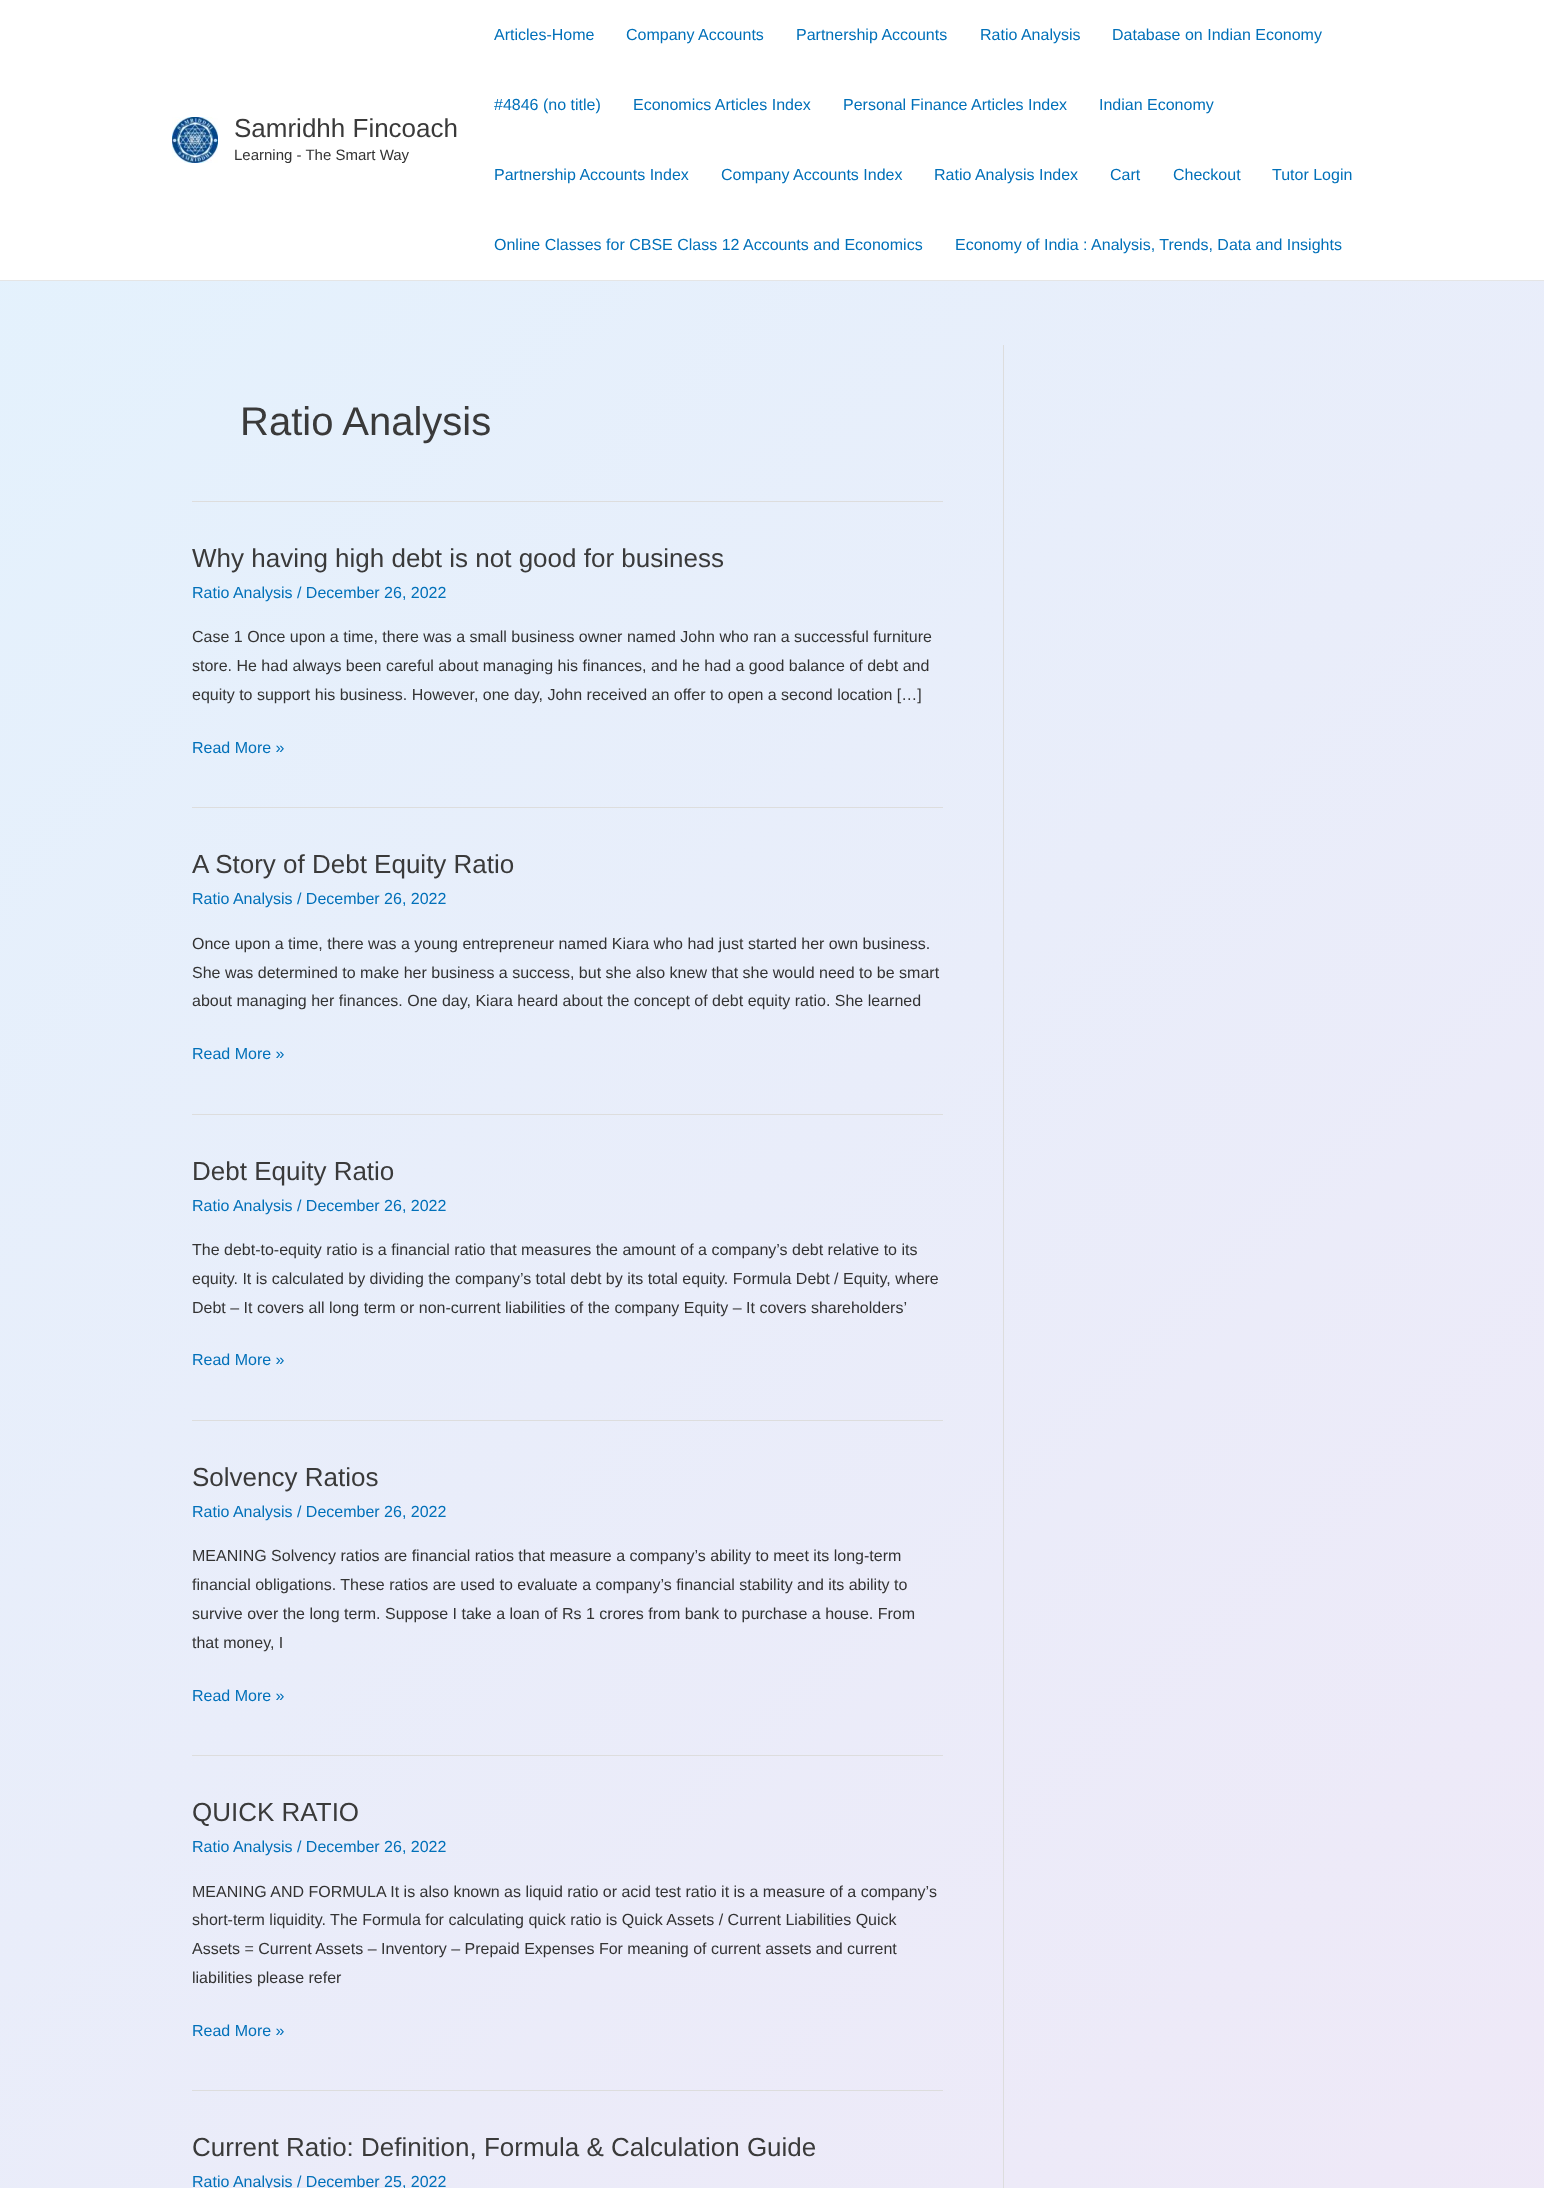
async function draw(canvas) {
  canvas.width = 1544
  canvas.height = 2188
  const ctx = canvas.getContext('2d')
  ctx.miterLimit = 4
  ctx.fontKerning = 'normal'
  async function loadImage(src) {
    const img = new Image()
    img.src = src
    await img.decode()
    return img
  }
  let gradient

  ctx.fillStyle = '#fff'
  ctx.fillRect(0, 0, 1544, 2188)
  gradient = ctx.createLinearGradient(-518, 518, 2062, 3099)
  gradient.addColorStop(0, '#e3f2fd')
  gradient.addColorStop(1, '#f3e5f5')
  ctx.fillStyle = gradient
  ctx.fillRect(0, 281, 1544, 1907)
  ctx.fillStyle = '#e5e5e5'
  ctx.fillRect(0, 280, 1544, 1)
  ctx.drawImage(await loadImage('image0.png'), 172, 117, 46, 46)
  ctx.font = '26px Liberation Sans'
  ctx.fillStyle = '#3a3a3a'
  ctx.fillText('Samridhh Fincoach', 234, 137)
  ctx.font = '15px Liberation Sans'
  ctx.fillStyle = '#333'
  ctx.fillText('Learning - The Smart Way', 234, 160)
  ctx.font = '16px Liberation Sans'
  ctx.fillStyle = '#0170b9'
  ctx.fillText('Articles-Home', 494, 40)
  ctx.fillText('Company Accounts', 626, 40)
  ctx.fillText('Partnership Accounts', 796, 40)
  ctx.fillText('Ratio Analysis', 980, 40)
  ctx.fillText('Database on Indian Economy', 1112, 40)
  ctx.fillText('#4846 (no title)', 494, 110)
  ctx.fillText('Economics Articles Index', 633, 110)
  ctx.fillText('Personal Finance Articles Index', 843, 110)
  ctx.fillText('Indian Economy', 1099, 110)
  ctx.fillText('Partnership Accounts Index', 494, 180)
  ctx.fillText('Company Accounts Index', 721, 180)
  ctx.fillText('Ratio Analysis Index', 934, 180)
  ctx.fillText('Cart', 1110, 180)
  ctx.fillText('Checkout', 1173, 180)
  ctx.fillText('Tutor Login', 1272, 180)
  ctx.fillText('Online Classes for CBSE Class 12 Accounts and Economics', 494, 250)
  ctx.fillText('Economy of India : Analysis, Trends, Data and Insights', 955, 250)
  ctx.fillStyle = '#ddd'
  ctx.fillRect(1003, 345, 1, 1843)
  ctx.fillRect(192, 501, 751, 1)
  ctx.font = '40px Liberation Sans'
  ctx.fillStyle = '#3a3a3a'
  ctx.fillText('Ratio Analysis', 240, 435)
  ctx.fillStyle = '#ddd'
  ctx.fillRect(192, 807, 751, 1)
  ctx.font = '26px Liberation Sans'
  ctx.fillStyle = '#3a3a3a'
  ctx.fillText('Why having high debt is not good for business', 192, 567)
  ctx.font = '16px Liberation Sans'
  ctx.fillStyle = '#0170b9'
  ctx.fillText('Ratio Analysis / December 26, 2022', 192, 598)
  ctx.fillStyle = '#333'
  ctx.fillText('Case 1 Once upon a time, there was a small business owner named John who ran a successful furniture', 192, 642)
  ctx.fillText('store. He had always been careful about managing his finances, and he had a good balance of debt and', 192, 671)
  ctx.fillText('equity to support his business. However, one day, John received an offer to open a second location […]', 192, 700)
  ctx.fillStyle = '#0170b9'
  ctx.fillText('Read More »', 192, 753)
  ctx.fillStyle = '#ddd'
  ctx.fillRect(192, 1114, 751, 1)
  ctx.font = '26px Liberation Sans'
  ctx.fillStyle = '#3a3a3a'
  ctx.fillText('A Story of Debt Equity Ratio', 192, 873)
  ctx.font = '16px Liberation Sans'
  ctx.fillStyle = '#0170b9'
  ctx.fillText('Ratio Analysis / December 26, 2022', 192, 904)
  ctx.fillStyle = '#333'
  ctx.fillText('Once upon a time, there was a young entrepreneur named Kiara who had just started her own business.', 192, 949)
  ctx.fillText('She was determined to make her business a success, but she also knew that she would need to be smart', 192, 978)
  ctx.fillText('about managing her finances. One day, Kiara heard about the concept of debt equity ratio. She learned', 192, 1006)
  ctx.fillStyle = '#0170b9'
  ctx.fillText('Read More »', 192, 1059)
  ctx.fillStyle = '#ddd'
  ctx.fillRect(192, 1420, 751, 1)
  ctx.font = '26px Liberation Sans'
  ctx.fillStyle = '#3a3a3a'
  ctx.fillText('Debt Equity Ratio', 192, 1180)
  ctx.font = '16px Liberation Sans'
  ctx.fillStyle = '#0170b9'
  ctx.fillText('Ratio Analysis / December 26, 2022', 192, 1211)
  ctx.fillStyle = '#333'
  ctx.fillText('The debt-to-equity ratio is a financial ratio that measures the amount of a company’s debt relative to its', 192, 1255)
  ctx.fillText('equity. It is calculated by dividing the company’s total debt by its total equity. Formula Debt / Equity, where', 192, 1284)
  ctx.fillText('Debt – It covers all long term or non-current liabilities of the company Equity – It covers shareholders’', 192, 1313)
  ctx.fillStyle = '#0170b9'
  ctx.fillText('Read More »', 192, 1365)
  ctx.fillStyle = '#ddd'
  ctx.fillRect(192, 1755, 751, 1)
  ctx.font = '26px Liberation Sans'
  ctx.fillStyle = '#3a3a3a'
  ctx.fillText('Solvency Ratios', 192, 1486)
  ctx.font = '16px Liberation Sans'
  ctx.fillStyle = '#0170b9'
  ctx.fillText('Ratio Analysis / December 26, 2022', 192, 1517)
  ctx.fillStyle = '#333'
  ctx.fillText('MEANING Solvency ratios are financial ratios that measure a company’s ability to meet its long-term', 192, 1561)
  ctx.fillText('financial obligations. These ratios are used to evaluate a company’s financial stability and its ability to', 192, 1590)
  ctx.fillText('survive over the long term. Suppose I take a loan of Rs 1 crores from bank to purchase a house. From', 192, 1619)
  ctx.fillText('that money, I', 192, 1648)
  ctx.fillStyle = '#0170b9'
  ctx.fillText('Read More »', 192, 1701)
  ctx.fillStyle = '#ddd'
  ctx.fillRect(192, 2090, 751, 1)
  ctx.font = '26px Liberation Sans'
  ctx.fillStyle = '#3a3a3a'
  ctx.fillText('QUICK RATIO', 192, 1821)
  ctx.font = '16px Liberation Sans'
  ctx.fillStyle = '#0170b9'
  ctx.fillText('Ratio Analysis / December 26, 2022', 192, 1852)
  ctx.fillStyle = '#333'
  ctx.fillText('MEANING AND FORMULA It is also known as liquid ratio or acid test ratio it is a measure of a company’s', 192, 1897)
  ctx.fillText('short-term liquidity. The Formula for calculating quick ratio is Quick Assets / Current Liabilities Quick', 192, 1925)
  ctx.fillText('Assets = Current Assets – Inventory – Prepaid Expenses For meaning of current assets and current', 192, 1954)
  ctx.fillText('liabilities please refer', 192, 1983)
  ctx.fillStyle = '#0170b9'
  ctx.fillText('Read More »', 192, 2036)
  ctx.font = '26px Liberation Sans'
  ctx.fillStyle = '#3a3a3a'
  ctx.fillText('Current Ratio: Definition, Formula & Calculation Guide', 192, 2156)
  ctx.font = '16px Liberation Sans'
  ctx.fillStyle = '#0170b9'
  ctx.fillText('Ratio Analysis / December 25, 2022', 192, 2187)
}

draw(document.querySelector('canvas'))
